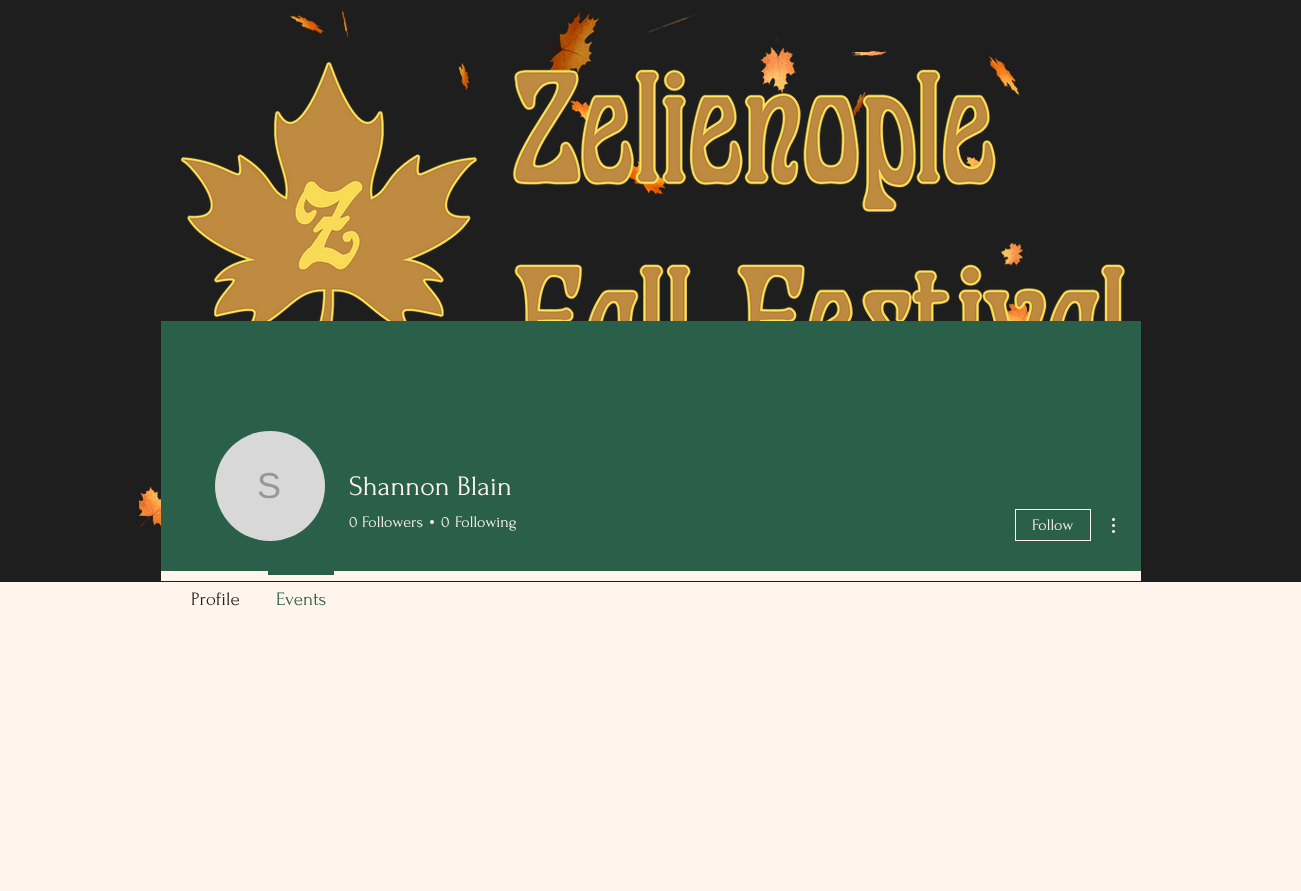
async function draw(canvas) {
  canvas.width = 1301
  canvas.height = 891
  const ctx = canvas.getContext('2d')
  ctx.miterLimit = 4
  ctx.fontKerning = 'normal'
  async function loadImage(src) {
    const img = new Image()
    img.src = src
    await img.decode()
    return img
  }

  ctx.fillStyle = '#fff5ec'
  ctx.fillRect(0, 0, 1301, 891)
  ctx.fillStyle = '#1e1e1e'
  ctx.fillRect(0, 0, 1301, 582)
  ctx.drawImage(await loadImage('image0.png'), 139, 8, 905, 520)
  ctx.drawImage(await loadImage('image1.png'), 181, 62, 946, 259)
  ctx.fillStyle = '#2a6049'
  ctx.fillRect(161, 321, 980, 250)
  ctx.fillStyle = '#d8d8d8'
  ctx.beginPath()
  ctx.arc(270, 486, 55, 0, 2 * Math.PI)
  ctx.fill()
  ctx.font = '36px Liberation Sans'
  ctx.fillStyle = '#979797'
  ctx.fillText('S', 257, 498)
  ctx.font = '28px Forum'
  ctx.fillStyle = '#fff5ec'
  ctx.fillText('Shannon Blain', 349, 495)
  ctx.font = '16px Forum'
  ctx.fillText('0', 349, 527)
  ctx.fillText('Followers', 362, 527)
  ctx.beginPath()
  ctx.arc(432, 522, 2, 0, 2 * Math.PI)
  ctx.fill()
  ctx.fillText('0', 441, 527)
  ctx.fillText('Following', 455, 527)
  ctx.strokeStyle = '#fff5ec'
  ctx.strokeRect(1015.5, 509.5, 75, 31)
  ctx.fillText('Follow', 1032, 530)
  ctx.drawImage(await loadImage('image2.png'), 1112, 518, 3, 15)
  ctx.font = '19px Forum'
  ctx.fillStyle = '#1e1e1e'
  ctx.fillText('Profile', 191, 605)
  ctx.fillStyle = '#fff5ec'
  ctx.fillRect(161, 571, 980, 10)
  ctx.fillStyle = '#2a6049'
  ctx.fillRect(268, 571, 66, 4)
  ctx.fillText('Events', 276, 605)
}

draw(document.querySelector('canvas'))
